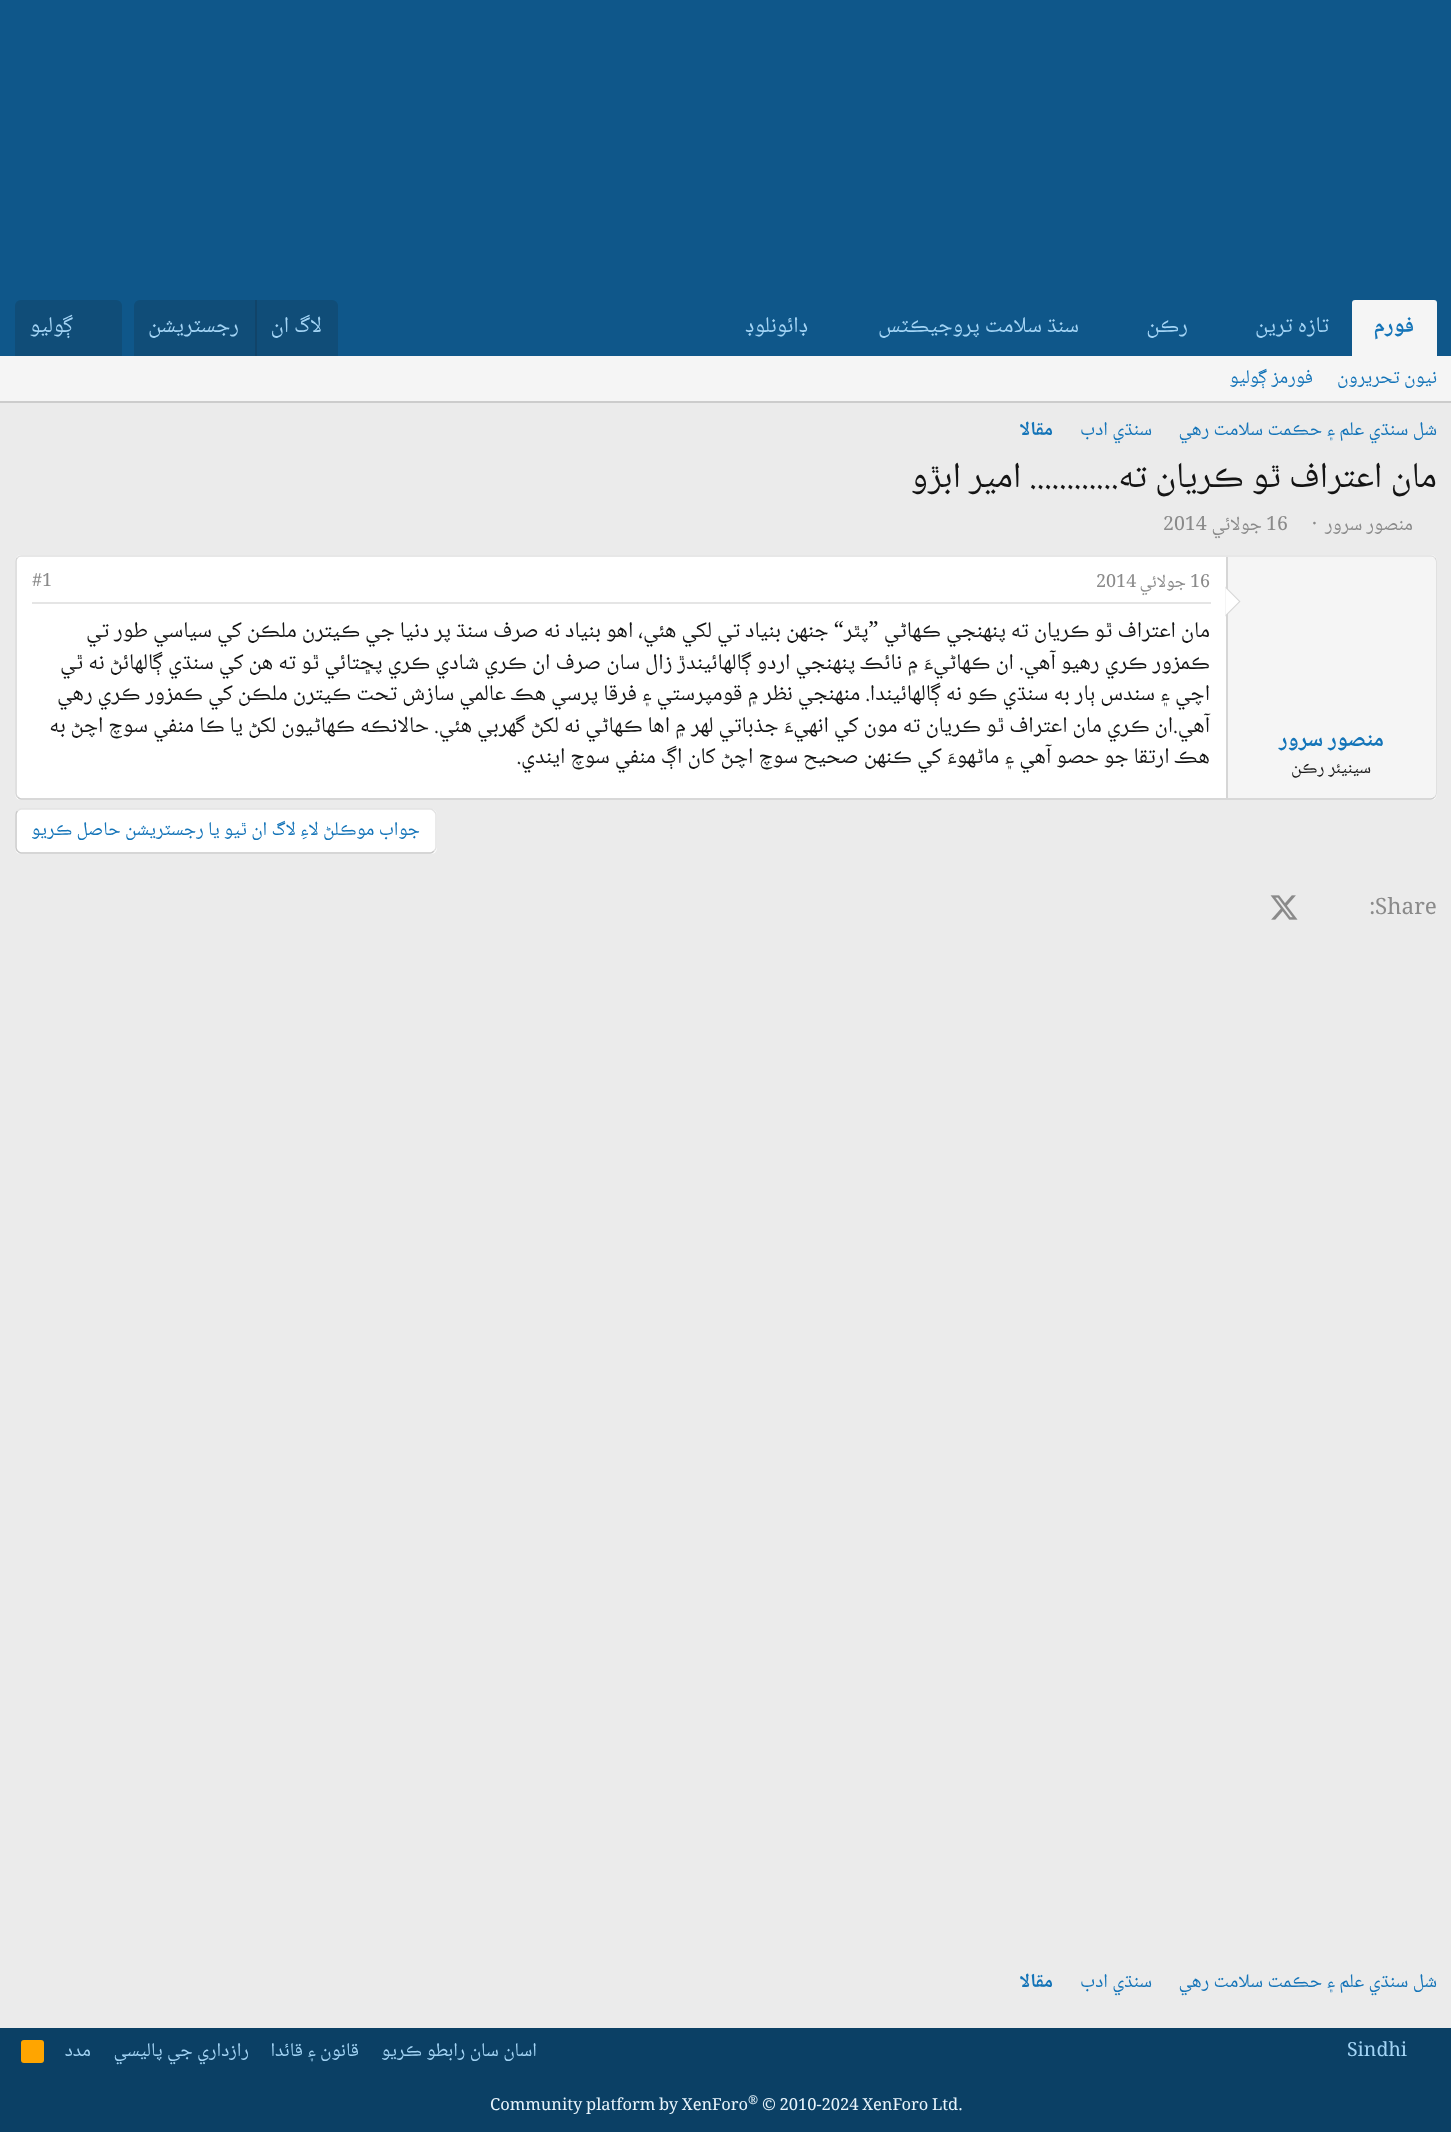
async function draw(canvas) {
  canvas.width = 1451
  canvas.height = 2132
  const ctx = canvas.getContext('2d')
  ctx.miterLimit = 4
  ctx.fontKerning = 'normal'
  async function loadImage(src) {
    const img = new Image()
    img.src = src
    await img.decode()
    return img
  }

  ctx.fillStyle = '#ebebeb'
  ctx.fillRect(0, 0, 1451, 2132)
  ctx.fillStyle = '#0f578a'
  ctx.fillRect(0, 0, 1451, 356)
  ctx.fillStyle = '#f5f5f5'
  ctx.beginPath()
  ctx.roundRect(1352, 300, 85, 56, [3, 3, 0, 0])
  ctx.fill()
  ctx.direction = 'rtl'
  ctx.font = 'bold 22.5px Noto Naskh Arabic'
  ctx.fillStyle = '#1474b8'
  ctx.fillText('فورم', 1414, 332)
  ctx.font = '22.5px Noto Naskh Arabic'
  ctx.fillStyle = '#a3d4f5'
  ctx.fillText('تازہ ترين', 1329, 332)
  ctx.fillText('رڪن', 1188, 332)
  ctx.fillText('سنڌ سلامت پروجيڪٽس', 1079, 332)
  ctx.fillText('ڊائونلوڊ', 808, 332)
  ctx.fillStyle = '#104d78'
  ctx.beginPath()
  ctx.roundRect(134, 300, 204, 56, [6, 6, 0, 0])
  ctx.fill()
  ctx.fillStyle = '#a3d4f5'
  ctx.fillText('لاگ ان', 322, 332)
  ctx.fillStyle = '#114469'
  ctx.fillRect(255, 300, 2, 56)
  ctx.fillStyle = '#a3d4f5'
  ctx.fillText('رجسٽريشن', 239, 332)
  ctx.fillStyle = '#104d78'
  ctx.beginPath()
  ctx.roundRect(15, 300, 107, 56, [6, 6, 0, 0])
  ctx.fill()
  ctx.fillStyle = '#a3d4f5'
  ctx.fillText('ڳوليو', 73, 332)
  ctx.fillStyle = '#f5f5f5'
  ctx.fillRect(0, 356, 1451, 45)
  ctx.fillStyle = '#ccc'
  ctx.fillRect(0, 401, 1451, 2)
  ctx.font = '19.5px Noto Naskh Arabic'
  ctx.fillStyle = '#1474b8'
  ctx.fillText('نيون تحريرون', 1437, 383)
  ctx.fillText('فورمز ڳوليو', 1313, 383)
  ctx.fillText('شل سنڌي علم ۽ حڪمت سلامت رهي', 1437, 435)
  ctx.fillText('سنڌي ادب', 1152, 435)
  ctx.font = 'bold 19.5px Noto Naskh Arabic'
  ctx.fillText('مقالا', 1053, 435)
  ctx.font = '36px Noto Naskh Arabic'
  ctx.fillStyle = '#141414'
  ctx.fillText('مان اعتراف ٿو ڪريان ته............ امير ابڙو', 1437, 487)
  ctx.font = '19.5px Noto Naskh Arabic'
  ctx.fillStyle = '#8a8a8a'
  ctx.fillText('منصور سرور', 1413, 530)
  ctx.direction = 'ltr'
  ctx.fillText('·', 1312, 530)
  ctx.fillText('16', 1266, 530)
  ctx.direction = 'rtl'
  ctx.fillText('جولائي', 1262, 530)
  ctx.direction = 'ltr'
  ctx.fillText('2014', 1163, 530)
  ctx.fillStyle = '#fff'
  ctx.beginPath()
  ctx.roundRect(15, 555, 1422, 245, 6)
  ctx.fill()
  ctx.beginPath()
  ctx.moveTo(17.5, 557.5)
  ctx.bezierCurveTo(18.5, 556.5, 19.5, 556, 21, 556)
  ctx.lineTo(1431, 556)
  ctx.bezierCurveTo(1432.5, 556, 1433.5, 556.5, 1434.5, 557.5)
  ctx.strokeStyle = '#e0e0e0'
  ctx.lineWidth = 1.5
  ctx.stroke()
  ctx.beginPath()
  ctx.moveTo(1434.5, 557.5)
  ctx.bezierCurveTo(1435.5, 558.5, 1436, 559.5, 1436, 561)
  ctx.lineTo(1436, 793.5)
  ctx.bezierCurveTo(1436, 795, 1435.5, 796, 1434.5, 797)
  ctx.strokeStyle = '#d6d6d6'
  ctx.stroke()
  ctx.beginPath()
  ctx.moveTo(1434.5, 797)
  ctx.bezierCurveTo(1433.5, 798, 1432.5, 799, 1431, 799)
  ctx.lineTo(21, 799)
  ctx.bezierCurveTo(19.5, 799, 18.5, 798, 17.5, 797)
  ctx.strokeStyle = '#ccc'
  ctx.stroke()
  ctx.beginPath()
  ctx.moveTo(17.5, 797)
  ctx.bezierCurveTo(16.5, 796, 16, 795, 16, 793.5)
  ctx.lineTo(16, 561)
  ctx.bezierCurveTo(16, 559.5, 16.5, 558.5, 17.5, 557.5)
  ctx.strokeStyle = '#d6d6d6'
  ctx.stroke()
  ctx.fillStyle = '#f5f5f5'
  ctx.beginPath()
  ctx.roundRect(1226, 557, 210, 241, [0, 5, 5, 0])
  ctx.fill()
  ctx.fillStyle = '#d6d6d6'
  ctx.fillRect(1226, 557, 2, 241)
  ctx.beginPath()
  ctx.moveTo(1225.5, 616.5)
  ctx.lineTo(1225.5, 586.5)
  ctx.lineTo(1240.5, 601.5)
  ctx.closePath()
  ctx.fill()
  ctx.fillStyle = '#fff'
  ctx.beginPath()
  ctx.moveTo(1225.5, 615)
  ctx.lineTo(1225.5, 588)
  ctx.lineTo(1239, 601.5)
  ctx.closePath()
  ctx.fill()
  ctx.direction = 'rtl'
  ctx.font = 'bold 22.5px Noto Naskh Arabic'
  ctx.fillStyle = '#1474b8'
  ctx.fillText('منصور سرور', 1384, 746)
  ctx.font = '18px Noto Naskh Arabic'
  ctx.fillStyle = '#141414'
  ctx.fillText('سينيئر رڪن', 1371, 773)
  ctx.fillStyle = '#e5e5e5'
  ctx.fillRect(32, 602, 1179, 2)
  ctx.direction = 'ltr'
  ctx.fillStyle = '#8a8a8a'
  ctx.fillText('16', 1190, 587)
  ctx.direction = 'rtl'
  ctx.fillText('جولائي', 1186, 587)
  ctx.direction = 'ltr'
  ctx.fillText('2014', 1096, 587)
  ctx.fillText('#1', 32, 586)
  ctx.direction = 'rtl'
  ctx.font = '22.5px Noto Naskh Arabic'
  ctx.fillStyle = '#141414'
  ctx.fillText('مان اعتراف ٿو ڪريان ته پنهنجي ڪهاڻي ”پٿر“ جنهن بنياد تي لکي هئي، اهو بنياد نه صرف سنڌ پر دنيا جي ڪيترن ملڪن کي سياسي طور تي', 1210, 637)
  ctx.fillText('ڪمزور ڪري رهيو آهي. ان ڪهاڻيءَ ۾ نائڪ پنهنجي اردو ڳالهائيندڙ زال سان صرف ان ڪري شادي ڪري پڇتائي ٿو ته هن کي سنڌي ڳالهائڻ نه ٿي', 1210, 669)
  ctx.fillText('اچي ۽ سندس ٻار به سنڌي ڪو نه ڳالهائيندا. منهنجي نظر ۾ قومپرستي ۽ فرقا پرسي هڪ عالمي سازش تحت ڪيترن ملڪن کي ڪمزور ڪري رهي', 1210, 700)
  ctx.fillText('آهي.ان ڪري مان اعتراف ٿو ڪريان ته مون کي انهيءَ جذباتي لهر ۾ اها ڪهاڻي نه لکڻ گهربي هئي. حالانڪه ڪهاڻيون لکڻ يا ڪا منفي سوچ اچڻ به', 1210, 732)
  ctx.fillText('هڪ ارتقا جو حصو آهي ۽ ماڻهوءَ کي ڪنهن صحيح سوچ اچڻ کان اڳ منفي سوچ ايندي.', 1210, 763)
  ctx.fillStyle = '#fff'
  ctx.beginPath()
  ctx.roundRect(15, 809, 422, 45, 6)
  ctx.fill()
  ctx.beginPath()
  ctx.moveTo(17.5, 811)
  ctx.bezierCurveTo(18.5, 810, 19.5, 809, 21, 809)
  ctx.lineTo(430.5, 809)
  ctx.bezierCurveTo(432, 809, 433, 810, 434, 811)
  ctx.bezierCurveTo(435, 812, 436, 813, 436, 814.5)
  ctx.lineTo(436, 847.5)
  ctx.bezierCurveTo(436, 849, 435, 850, 434, 851)
  ctx.strokeStyle = '#e3e3e3'
  ctx.stroke()
  ctx.beginPath()
  ctx.moveTo(434, 851)
  ctx.bezierCurveTo(433, 852, 432, 853, 430.5, 853)
  ctx.lineTo(21, 853)
  ctx.bezierCurveTo(19.5, 853, 18.5, 852, 17.5, 851)
  ctx.bezierCurveTo(16.5, 850, 16, 849, 16, 847.5)
  ctx.lineTo(16, 814.5)
  ctx.bezierCurveTo(16, 813, 16.5, 812, 17.5, 811)
  ctx.strokeStyle = '#c9c9c9'
  ctx.stroke()
  ctx.font = '19.5px Noto Naskh Arabic'
  ctx.fillStyle = '#1474b8'
  ctx.fillText('جواب موڪلڻ لاءِ لاگ ان ٿيو يا رجسٽريشن حاصل ڪريو', 420, 835)
  ctx.direction = 'ltr'
  ctx.font = '22.5px Noto Naskh Arabic'
  ctx.fillStyle = '#8a8a8a'
  ctx.fillText('Share', 1375, 914)
  ctx.fillText(':', 1369, 914)
  ctx.drawImage(await loadImage('image0.png'), 1270, 895, 28, 25)
  ctx.direction = 'rtl'
  ctx.font = '19.5px Noto Naskh Arabic'
  ctx.fillStyle = '#1474b8'
  ctx.fillText('شل سنڌي علم ۽ حڪمت سلامت رهي', 1437, 1987)
  ctx.fillText('سنڌي ادب', 1152, 1987)
  ctx.font = 'bold 19.5px Noto Naskh Arabic'
  ctx.fillText('مقالا', 1053, 1987)
  ctx.fillStyle = '#0b4065'
  ctx.fillRect(0, 2028, 1451, 104)
  ctx.direction = 'ltr'
  ctx.font = '19.5px Noto Naskh Arabic'
  ctx.fillStyle = '#a3d4f5'
  ctx.fillText('Sindhi', 1347, 2056)
  ctx.direction = 'rtl'
  ctx.fillText('اسان سان رابطو ڪريو', 537, 2056)
  ctx.fillText('قانون ۽ قائدا', 359, 2056)
  ctx.fillText('رازداري جي پاليسي', 249, 2056)
  ctx.fillText('مدد', 91, 2056)
  ctx.fillStyle = '#ffa500'
  ctx.beginPath()
  ctx.roundRect(21, 2040, 23, 23, 3)
  ctx.fill()
  ctx.direction = 'ltr'
  ctx.font = '16.5px Noto Naskh Arabic'
  ctx.fillStyle = '#e8f4fc'
  ctx.fillText('© 2010-2024 XenForo Ltd.', 762, 2110)
  ctx.font = '12px Noto Naskh Arabic'
  ctx.fillText('®', 748, 2104)
  ctx.font = '16.5px Noto Naskh Arabic'
  ctx.fillText('Community platform by XenForo', 490, 2110)
}

draw(document.querySelector('canvas'))
